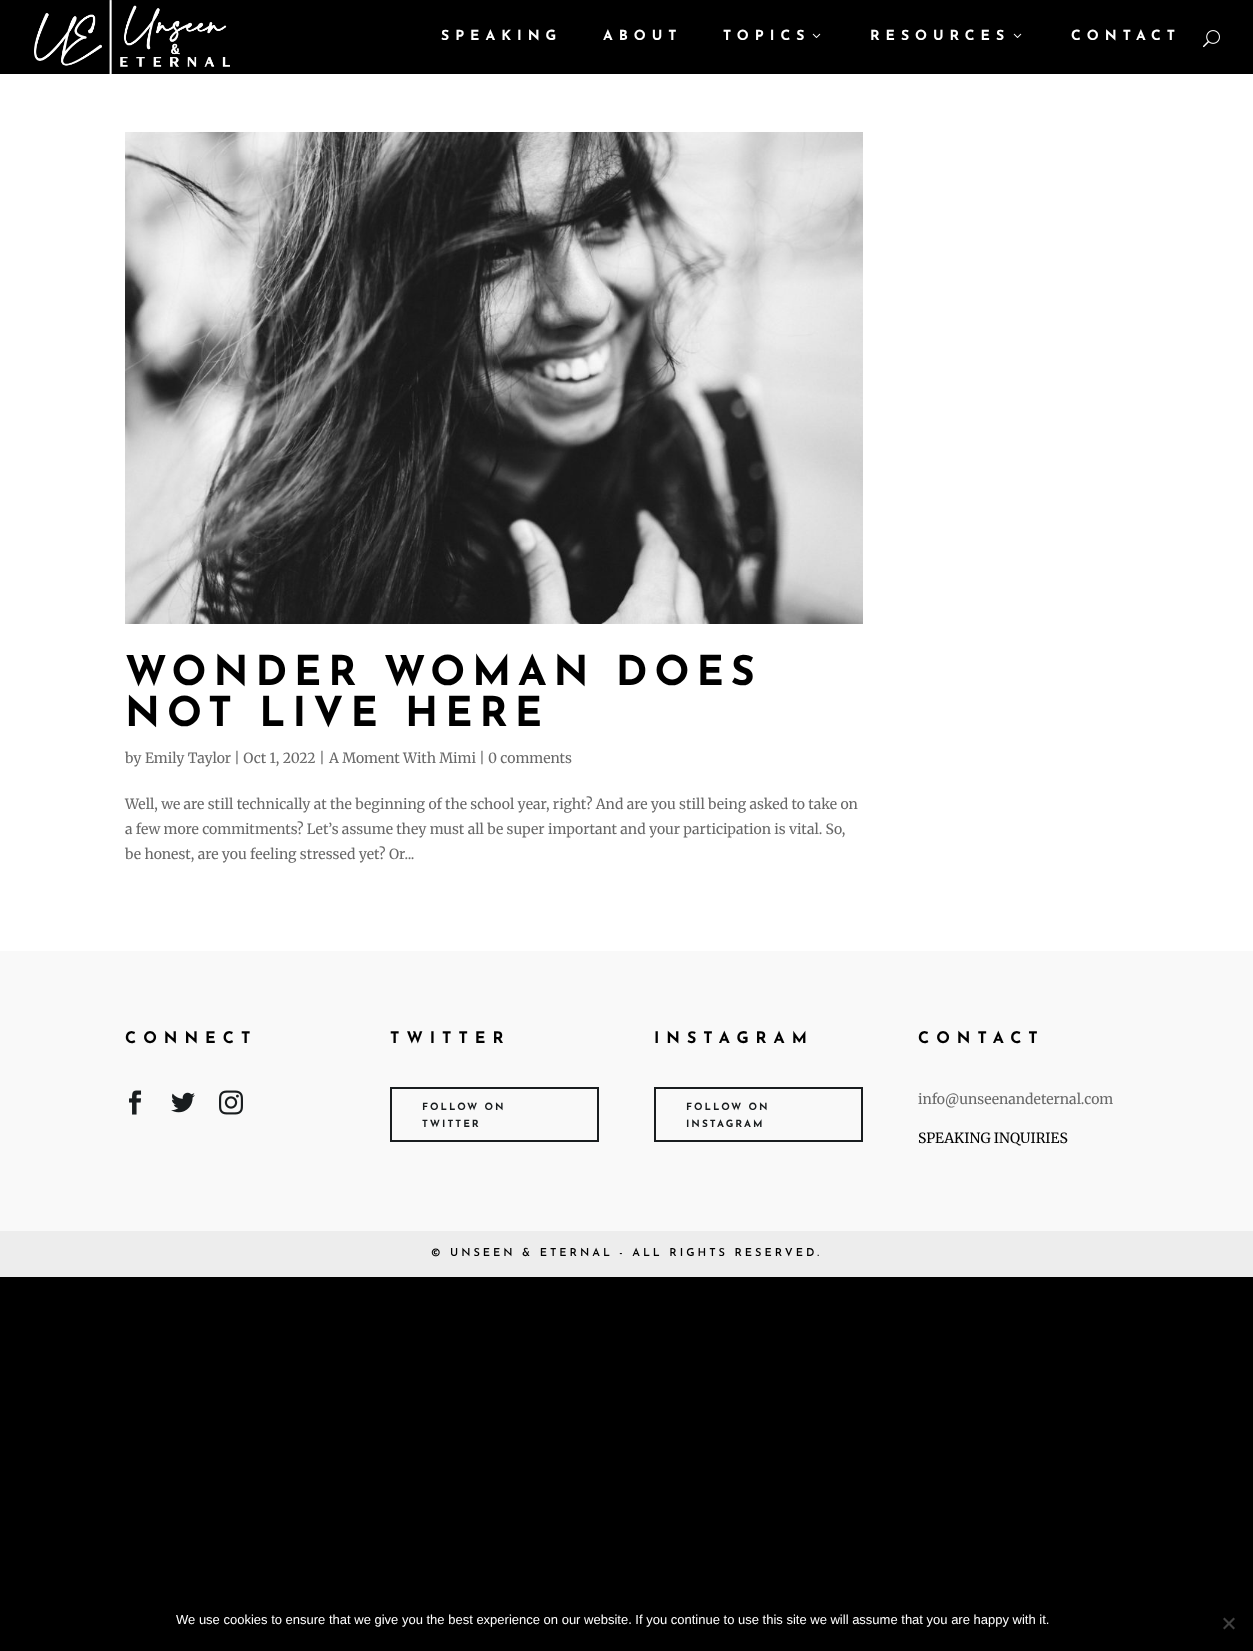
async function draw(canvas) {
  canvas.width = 1253
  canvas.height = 1651
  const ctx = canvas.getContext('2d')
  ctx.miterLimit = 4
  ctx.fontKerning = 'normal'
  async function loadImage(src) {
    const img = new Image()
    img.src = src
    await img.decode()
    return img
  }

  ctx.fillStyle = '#000'
  ctx.fillRect(0, 0, 1253, 1651)
  ctx.drawImage(await loadImage('image0.png'), 34, 0, 196, 74)
  ctx.letterSpacing = '6px'
  ctx.font = '100 14px Josefin Sans'
  ctx.fillStyle = '#fff'
  ctx.fillText('SPEAKING', 441, 40)
  ctx.fillText('ABOUT', 603, 40)
  ctx.fillText('TOPICS', 723, 40)
  ctx.drawImage(await loadImage('image1.png'), 812, 33, 9, 5)
  ctx.fillText('RESOURCES', 870, 40)
  ctx.drawImage(await loadImage('image1.png'), 1013, 33, 9, 5)
  ctx.fillText('CONTACT', 1071, 40)
  ctx.drawImage(await loadImage('image2.png'), 1203, 30, 17, 18)
  ctx.fillRect(0, 74, 1253, 877)
  ctx.drawImage(await loadImage('image3.png'), 125, 132, 738, 492)
  ctx.letterSpacing = '7px'
  ctx.font = '100 41px Josefin Sans'
  ctx.fillStyle = '#000'
  ctx.fillText('WONDER WOMAN DOES', 125, 685)
  ctx.fillText('NOT LIVE HERE', 125, 726)
  ctx.letterSpacing = '0px'
  ctx.font = '300 14px Merriweather'
  ctx.fillStyle = '#696969'
  ctx.fillText('by', 125, 763)
  ctx.fillText('Emily Taylor', 145, 763)
  ctx.fillText('| Oct 1, 2022 |', 234, 763)
  ctx.fillText('A Moment With Mimi', 329, 763)
  ctx.fillText('|', 479, 763)
  ctx.fillText('0 comments', 488, 763)
  ctx.fillText('Well, we are still technically at the beginning of the school year, right? And are you still being asked to take on', 125, 809)
  ctx.fillText('a few more commitments? Let’s assume they must all be super important and your participation is vital. So,', 125, 834)
  ctx.fillText('be honest, are you feeling stressed yet? Or...', 125, 859)
  ctx.fillStyle = '#f9f9f9'
  ctx.fillRect(0, 951, 1253, 280)
  ctx.letterSpacing = '7px'
  ctx.font = '100 16px Josefin Sans'
  ctx.fillStyle = '#000'
  ctx.fillText('CONNECT', 125, 1043)
  ctx.drawImage(await loadImage('image4.png'), 129, 1090, 13, 25)
  ctx.drawImage(await loadImage('image5.png'), 171, 1092, 24, 21)
  ctx.drawImage(await loadImage('image6.png'), 219, 1090, 24, 25)
  ctx.fillText('TWITTER', 390, 1043)
  ctx.strokeStyle = '#191d1f'
  ctx.lineWidth = 2
  ctx.strokeRect(391, 1088, 207, 53)
  ctx.letterSpacing = '2px'
  ctx.font = '100 10px Josefin Sans'
  ctx.fillStyle = '#191d1f'
  ctx.fillText('FOLLOW ON', 422, 1110)
  ctx.fillText('TWITTER', 422, 1127)
  ctx.letterSpacing = '7px'
  ctx.font = '100 16px Josefin Sans'
  ctx.fillStyle = '#000'
  ctx.fillText('INSTAGRAM', 654, 1043)
  ctx.strokeRect(655, 1088, 207, 53)
  ctx.letterSpacing = '2px'
  ctx.font = '100 10px Josefin Sans'
  ctx.fillStyle = '#191d1f'
  ctx.fillText('FOLLOW ON', 686, 1110)
  ctx.fillText('INSTAGRAM', 686, 1127)
  ctx.letterSpacing = '7px'
  ctx.font = '100 16px Josefin Sans'
  ctx.fillStyle = '#000'
  ctx.fillText('CONTACT', 918, 1043)
  ctx.letterSpacing = '0px'
  ctx.font = '300 14px Merriweather'
  ctx.fillStyle = '#696969'
  ctx.fillText('info@unseenandeternal.com', 918, 1104)
  ctx.fillStyle = '#000'
  ctx.fillText('SPEAKING INQUIRIES', 918, 1143)
  ctx.fillStyle = '#ededed'
  ctx.fillRect(0, 1231, 1253, 46)
  ctx.letterSpacing = '3px'
  ctx.font = '100 11px "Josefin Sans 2"'
  ctx.fillStyle = '#000'
  ctx.fillText('© UNSEEN & ETERNAL - ALL RIGHTS RESERVED.', 431, 1256)
  ctx.letterSpacing = '0px'
  ctx.font = '13px Liberation Sans'
  ctx.fillStyle = '#fff'
  ctx.fillText('We use cookies to ensure that we give you the best experience on our website. If you continue to use this site we will assume that you are happy with it.', 176, 1624)
  ctx.fillStyle = '#404040'
  ctx.beginPath()
  ctx.moveTo(1233.5, 1617.5)
  ctx.lineTo(1235, 1619)
  ctx.lineTo(1224.5, 1629.5)
  ctx.lineTo(1223, 1628)
  ctx.closePath()
  ctx.fill()
  ctx.beginPath()
  ctx.moveTo(1223, 1619)
  ctx.lineTo(1224.5, 1617.5)
  ctx.lineTo(1235, 1628)
  ctx.lineTo(1233.5, 1629.5)
  ctx.closePath()
  ctx.fill()
}

draw(document.querySelector('canvas'))
